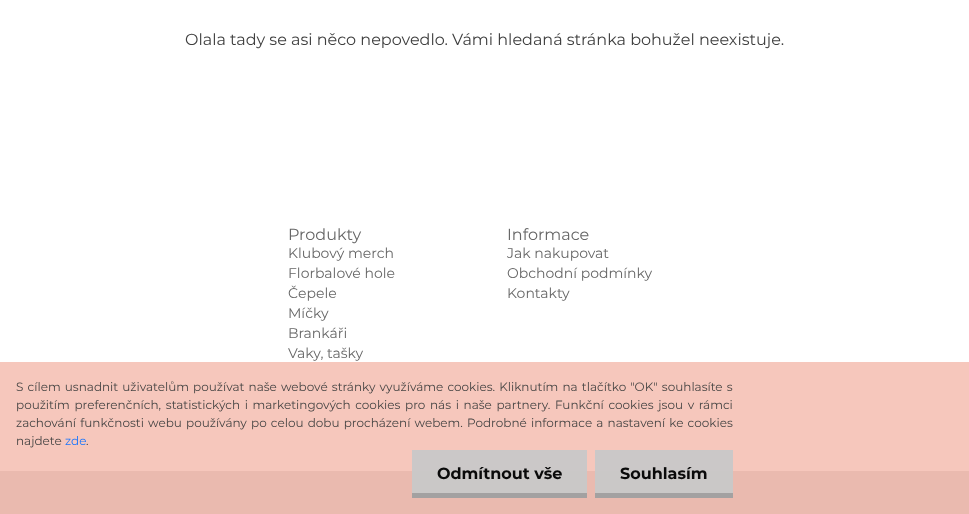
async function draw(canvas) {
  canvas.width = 969
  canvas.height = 514
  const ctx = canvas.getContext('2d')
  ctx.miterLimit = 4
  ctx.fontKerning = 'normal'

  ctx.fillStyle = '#fff'
  ctx.fillRect(0, 0, 969, 514)
  ctx.fillStyle = '#f6c7bc'
  ctx.fillRect(0, 362, 969, 109)
  ctx.font = '16px Montserrat'
  ctx.fillStyle = '#3f3f3f'
  ctx.fillText('Olala tady se asi něco nepovedlo. Vámi hledaná stránka bohužel neexistuje.', 185, 45)
  ctx.fillStyle = '#676767'
  ctx.fillText('Produkty', 288, 240)
  ctx.font = '14px Montserrat'
  ctx.fillText('Klubový merch', 288, 258)
  ctx.fillText('Florbalové hole', 288, 278)
  ctx.fillText('Čepele', 288, 298)
  ctx.fillText('Míčky', 288, 318)
  ctx.fillText('Brankáři', 288, 338)
  ctx.fillText('Vaky, tašky', 288, 358)
  ctx.font = '16px Montserrat'
  ctx.fillText('Informace', 507, 240)
  ctx.font = '14px Montserrat'
  ctx.fillText('Jak nakupovat', 507, 258)
  ctx.fillText('Obchodní podmínky', 507, 278)
  ctx.fillText('Kontakty', 507, 298)
  ctx.fillStyle = '#eabaaf'
  ctx.fillRect(0, 471, 969, 43)
  ctx.wordSpacing = '1px'
  ctx.font = '12px Montserrat'
  ctx.fillStyle = '#484645'
  ctx.fillText('S cílem usnadnit uživatelům používat naše webové stránky využíváme cookies. Kliknutím na tlačítko "OK" souhlasíte s', 16, 391)
  ctx.wordSpacing = '1.5px'
  ctx.fillText('použitím preferenčních, statistických i marketingových cookies pro nás i naše partnery. Funkční cookies jsou v rámci', 16, 409)
  ctx.wordSpacing = '1px'
  ctx.fillText('zachování funkčnosti webu používány po celou dobu procházení webem. Podrobné informace a nastavení ke cookies', 16, 427)
  ctx.wordSpacing = '0px'
  ctx.fillText('najdete', 16, 445)
  ctx.fillStyle = '#1975fd'
  ctx.fillText('zde', 65, 445)
  ctx.fillStyle = '#484645'
  ctx.fillText('.', 86, 445)
  ctx.fillStyle = '#c8c8c8f2'
  ctx.fillRect(412, 450, 175, 43)
  ctx.fillStyle = '#a3a1a1'
  ctx.fillRect(412, 493, 175, 5)
  ctx.font = 'bold 16px Montserrat'
  ctx.fillStyle = '#0a0a0a'
  ctx.fillText('Odmítnout vše', 437, 479)
  ctx.fillStyle = '#c8c8c8f2'
  ctx.fillRect(595, 450, 138, 43)
  ctx.fillStyle = '#a3a1a1'
  ctx.fillRect(595, 493, 138, 5)
  ctx.fillStyle = '#0a0a0a'
  ctx.fillText('Souhlasím', 620, 479)
}

draw(document.querySelector('canvas'))
